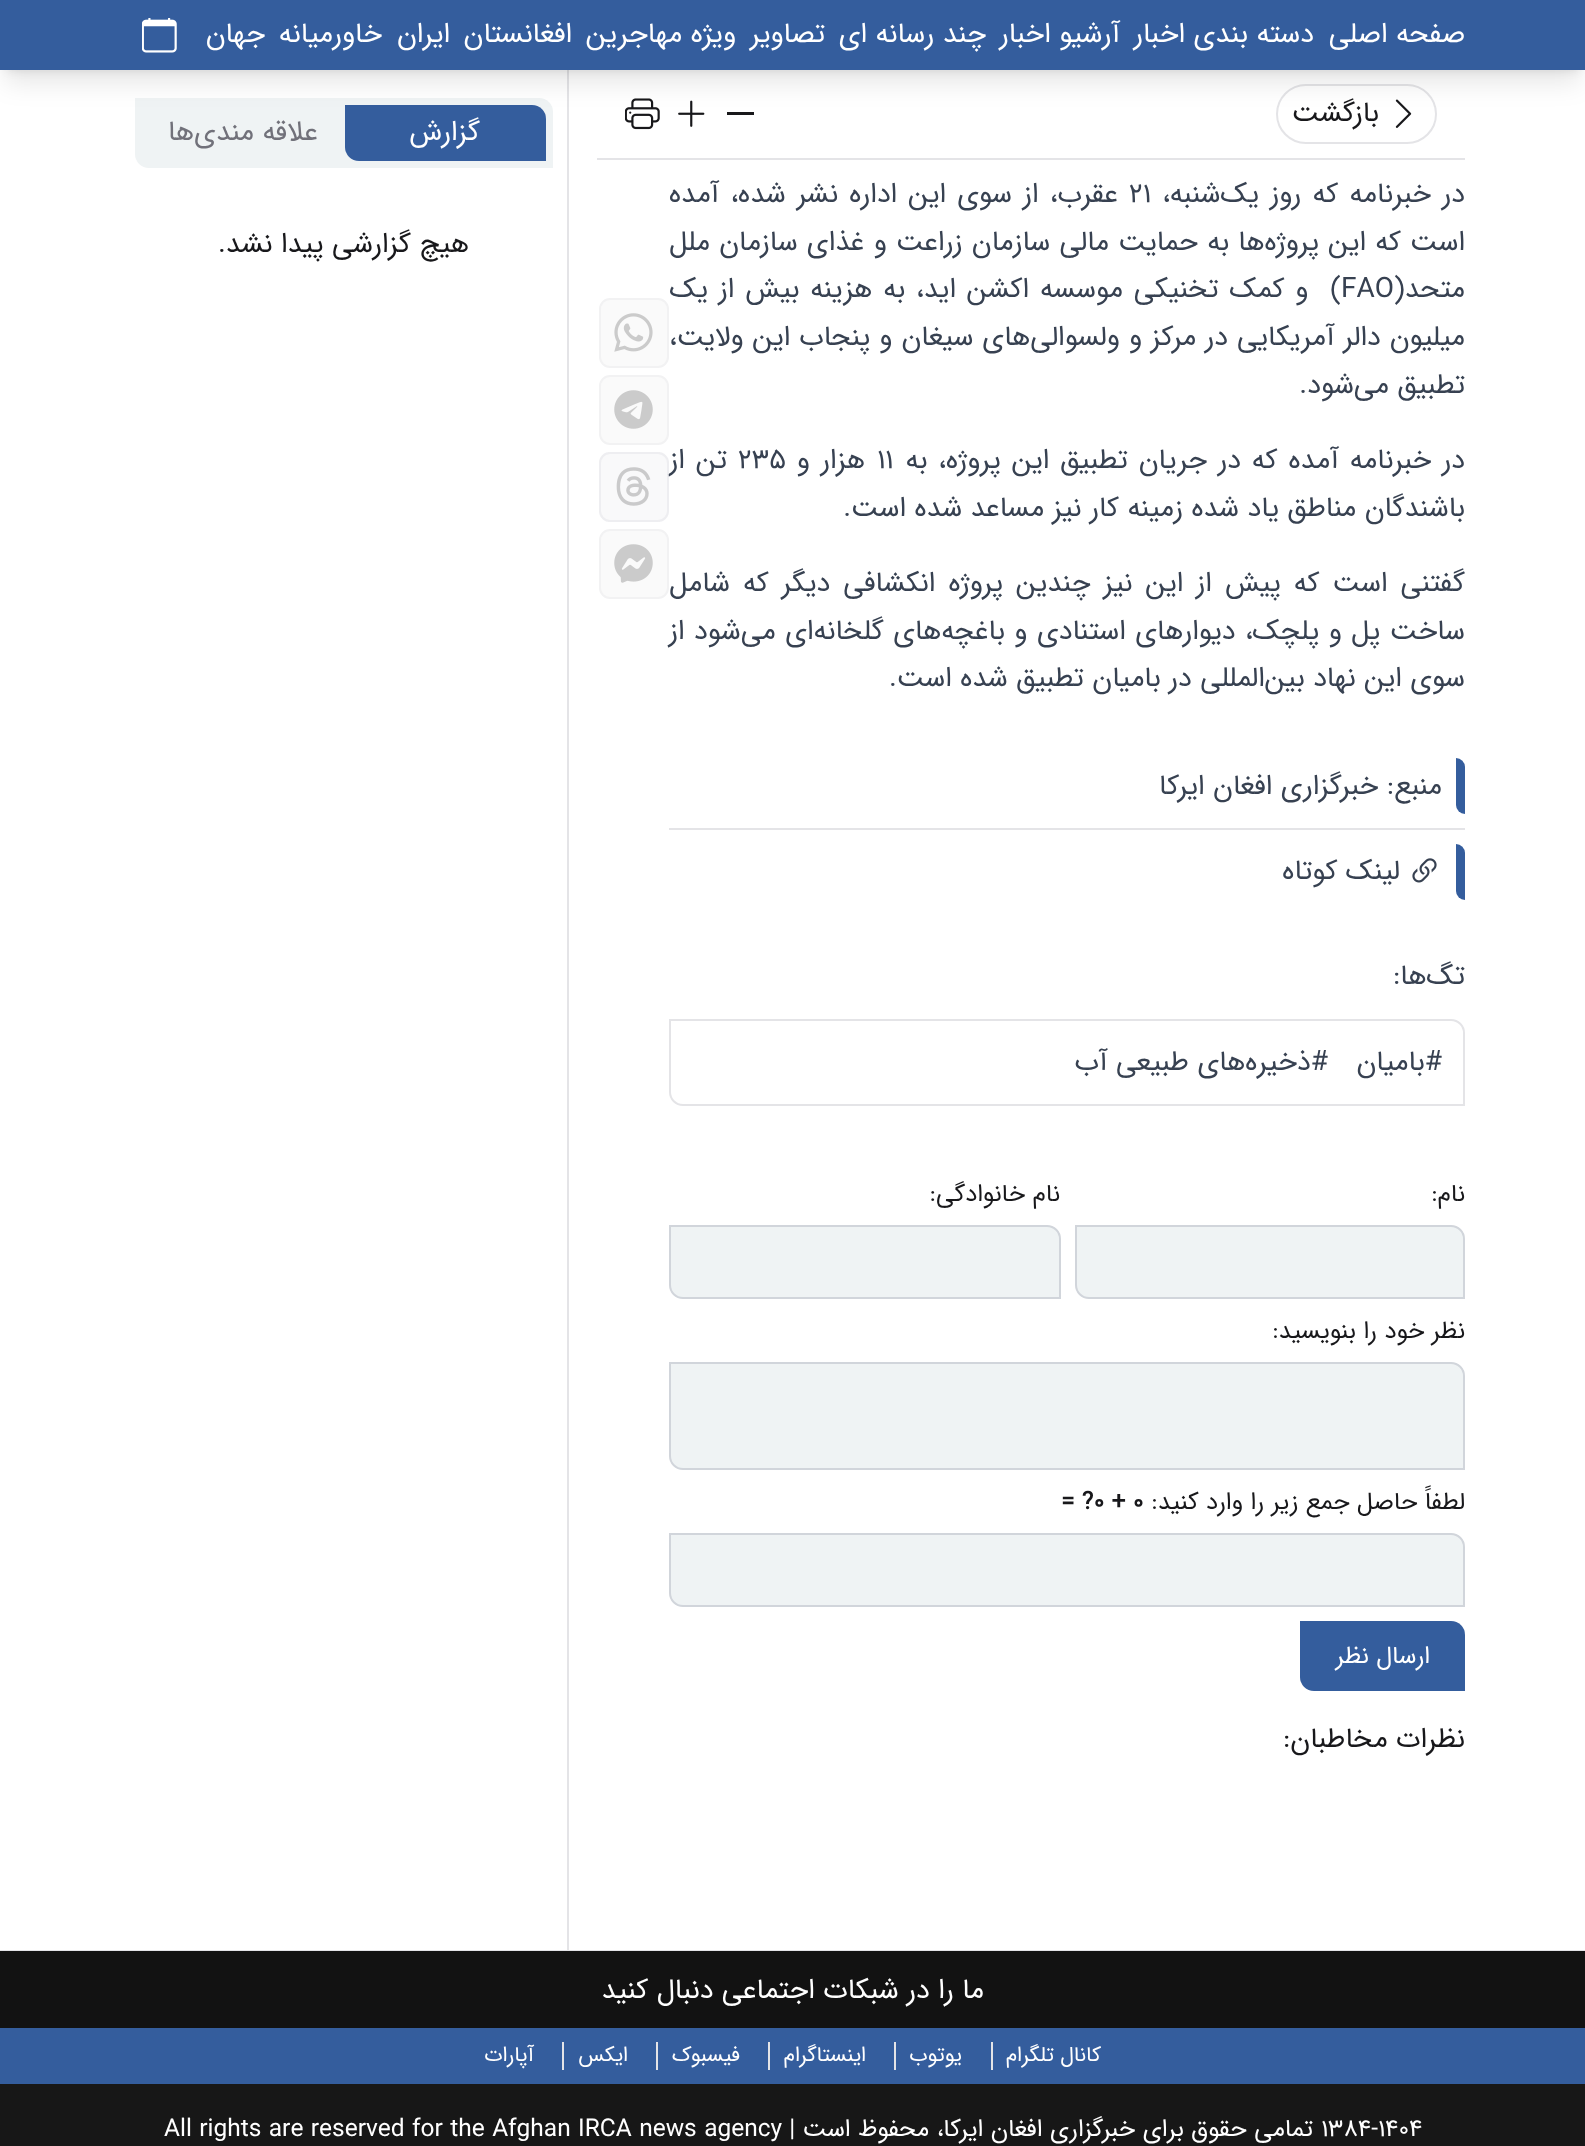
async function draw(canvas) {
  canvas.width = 1585
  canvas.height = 2146
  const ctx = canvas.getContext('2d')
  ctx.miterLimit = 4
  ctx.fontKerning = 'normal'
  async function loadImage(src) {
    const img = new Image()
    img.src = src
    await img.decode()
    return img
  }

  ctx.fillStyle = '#fff'
  ctx.fillRect(0, 0, 1585, 2146)
  ctx.beginPath()
  ctx.roundRect(1277, 85, 159, 58, 29)
  ctx.strokeStyle = '#e4e4e7'
  ctx.lineWidth = 2
  ctx.stroke()
  ctx.fillStyle = '#e4e4e7'
  ctx.fillRect(567, 70, 2, 1880)
  ctx.fillStyle = '#0000001a'
  ctx.filter = 'blur(5px)'
  ctx.beginPath()
  ctx.rect(7, 14, 1572, 56)
  ctx.fill()
  ctx.filter = 'none'
  ctx.drawImage(await loadImage('image1.png'), 1395, 99, 17, 29)
  ctx.fillStyle = '#18181b'
  ctx.fillRect(727, 112, 27, 3)
  ctx.drawImage(await loadImage('image2.png'), 678, 100, 27, 27)
  ctx.drawImage(await loadImage('image3.png'), 625, 98, 35, 32)
  ctx.fillStyle = '#eff3f4'
  ctx.beginPath()
  ctx.roundRect(135, 98, 418, 70, [0, 14, 0, 14])
  ctx.fill()
  ctx.fillStyle = '#345d9d'
  ctx.beginPath()
  ctx.roundRect(345, 105, 201, 56, [0, 14, 0, 14])
  ctx.fill()
  ctx.fillStyle = '#0000001a'
  ctx.filter = 'blur(13px)'
  ctx.beginPath()
  ctx.rect(5, 23, 1575, 59)
  ctx.fill()
  ctx.filter = 'none'
  ctx.fillStyle = '#345d9d'
  ctx.fillRect(0, 0, 1585, 70)
  ctx.direction = 'rtl'
  ctx.font = '28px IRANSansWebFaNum'
  ctx.fillStyle = '#fff'
  ctx.fillText('صفحه اصلی', 1465, 42)
  ctx.fillText('دسته بندی اخبار', 1314, 42)
  ctx.fillText('آرشیو اخبار', 1120, 42)
  ctx.fillText('چند رسانه ای', 986, 42)
  ctx.fillText('تصاویر', 825, 42)
  ctx.fillText('ویژه مهاجرین', 736, 42)
  ctx.fillText('افغانستان', 572, 42)
  ctx.fillText('ایران', 450, 42)
  ctx.fillText('خاورمیانه', 382, 42)
  ctx.fillText('جهان', 265, 42)
  ctx.drawImage(await loadImage('image0.png'), 142, 18, 35, 35)
  ctx.fillStyle = '#e4e4e7'
  ctx.fillRect(597, 158, 868, 2)
  ctx.fillStyle = '#18181b'
  ctx.fillText('بازگشت', 1379, 121)
  ctx.wordSpacing = '2.75px'
  ctx.fillStyle = '#374151'
  ctx.fillText('در خبرنامه که روز یک‌شنبه،', 1465, 202)
  ctx.wordSpacing = '0px'
  ctx.direction = 'ltr'
  ctx.fillText('21', 1129, 202)
  ctx.wordSpacing = '2.75px'
  ctx.direction = 'rtl'
  ctx.fillText('عقرب، از سوی این اداره نشر شده، آمده', 1118, 202)
  ctx.wordSpacing = '0.75px'
  ctx.fillText('است که این پروژه‌ها به حمایت مالی سازمان زراعت و غذای سازمان ملل', 1465, 250)
  ctx.wordSpacing = '0px'
  ctx.fillText('متحد(', 1465, 297)
  ctx.direction = 'ltr'
  ctx.fillText('FAO', 1341, 297)
  ctx.wordSpacing = '2.4px'
  ctx.direction = 'rtl'
  ctx.fillText(')  و کمک تخنیکی موسسه اکشن اید، به هزینه بیش از یک', 1341, 297)
  ctx.wordSpacing = '0.5px'
  ctx.fillText('میلیون دالر آمریکایی در مرکز و ولسوالی‌های سیغان و پنجاب این ولایت،', 1465, 345)
  ctx.wordSpacing = '0px'
  ctx.fillText('تطبیق می‌شود.', 1465, 393)
  ctx.wordSpacing = '2.5px'
  ctx.fillText('در خبرنامه آمده که در جریان تطبیق این پروژه، به', 1465, 468)
  ctx.wordSpacing = '0px'
  ctx.direction = 'ltr'
  ctx.fillText('11', 877, 468)
  ctx.wordSpacing = '2.75px'
  ctx.direction = 'rtl'
  ctx.fillText('هزار و', 865, 468)
  ctx.wordSpacing = '0px'
  ctx.direction = 'ltr'
  ctx.fillText('235', 738, 468)
  ctx.wordSpacing = '2.75px'
  ctx.direction = 'rtl'
  ctx.fillText('تن از', 727, 468)
  ctx.wordSpacing = '0px'
  ctx.fillText('باشندگان مناطق یاد شده زمینه کار نیز مساعد شده است.', 1465, 516)
  ctx.wordSpacing = '4.6px'
  ctx.fillText('گفتنی است که پیش از این نیز چندین پروژه انکشافی دیگر که شامل', 1465, 591)
  ctx.wordSpacing = '1px'
  ctx.fillText('ساخت پل و پلچک، دیوارهای استنادی و باغچه‌های گلخانه‌ای می‌شود ‌از', 1465, 639)
  ctx.wordSpacing = '0px'
  ctx.fillText('سوی ‌این نهاد بین‌المللی در بامیان تطبیق شده است.', 1465, 686)
  ctx.fillStyle = '#345d9d'
  ctx.beginPath()
  ctx.roundRect(1456, 758, 9, 56, [0, 9, 0, 9])
  ctx.fill()
  ctx.fillStyle = '#374151'
  ctx.fillText('منبع: خبرگزاری افغان ایرکا', 1442, 794)
  ctx.fillStyle = '#e4e4e7'
  ctx.fillRect(669, 828, 796, 2)
  ctx.fillStyle = '#345d9d'
  ctx.beginPath()
  ctx.roundRect(1456, 844, 9, 56, [0, 9, 0, 9])
  ctx.fill()
  ctx.drawImage(await loadImage('image4.png'), 1412, 858, 25, 25)
  ctx.fillStyle = '#374151'
  ctx.fillText('لینک کوتاه', 1400, 879)
  ctx.fillText('تگ‌ها:', 1465, 984)
  ctx.beginPath()
  ctx.roundRect(670, 1020, 794, 85, [0, 13, 0, 13])
  ctx.stroke()
  ctx.fillText('#بامیان', 1442, 1070)
  ctx.fillText('#ذخیره‌های طبیعی آب', 1328, 1070)
  ctx.font = '24.5px IRANSansWebFaNum'
  ctx.fillStyle = '#18181b'
  ctx.fillText('نام:', 1465, 1201)
  ctx.fillStyle = '#eff3f4'
  ctx.beginPath()
  ctx.roundRect(1076, 1226, 388, 72, [0, 13, 0, 13])
  ctx.fill()
  ctx.strokeStyle = '#d1d5db'
  ctx.stroke()
  ctx.fillStyle = '#18181b'
  ctx.fillText('نام خانوادگی:', 1060, 1201)
  ctx.fillStyle = '#eff3f4'
  ctx.beginPath()
  ctx.roundRect(670, 1226, 390, 72, [0, 13, 0, 13])
  ctx.fill()
  ctx.stroke()
  ctx.fillStyle = '#18181b'
  ctx.fillText('نظر خود را بنویسید:', 1465, 1338)
  ctx.fillStyle = '#eff3f4'
  ctx.beginPath()
  ctx.roundRect(670, 1363, 794, 106, [0, 13, 0, 13])
  ctx.fill()
  ctx.stroke()
  ctx.fillStyle = '#18181b'
  ctx.fillText('لطفاً حاصل جمع زیر را وارد کنید:', 1465, 1509)
  ctx.direction = 'ltr'
  ctx.font = 'bold 24.5px IRANSansWebFaNum'
  ctx.fillText('= ?0 + 0', 1061, 1509)
  ctx.fillStyle = '#eff3f4'
  ctx.beginPath()
  ctx.roundRect(670, 1534, 794, 72, [0, 13, 0, 13])
  ctx.fill()
  ctx.stroke()
  ctx.fillStyle = '#345d9d'
  ctx.beginPath()
  ctx.roundRect(1300, 1621, 165, 70, [0, 14, 0, 14])
  ctx.fill()
  ctx.direction = 'rtl'
  ctx.font = '24.5px IRANSansWebFaNum'
  ctx.fillStyle = '#fff'
  ctx.fillText('ارسال نظر', 1430, 1663)
  ctx.font = '28px IRANSansWebFaNum'
  ctx.fillStyle = '#18181b'
  ctx.fillText('نظرات مخاطبان:', 1465, 1747)
  ctx.fillStyle = '#fafafa'
  ctx.beginPath()
  ctx.roundRect(600, 299, 68, 68, 10)
  ctx.fill()
  ctx.strokeStyle = '#f2f2f3'
  ctx.stroke()
  ctx.drawImage(await loadImage('image5.png'), 614, 313, 39, 39)
  ctx.beginPath()
  ctx.roundRect(600, 376, 68, 68, 10)
  ctx.fill()
  ctx.stroke()
  ctx.drawImage(await loadImage('image6.png'), 614, 390, 39, 39)
  ctx.fillStyle = '#f4f4f580'
  ctx.beginPath()
  ctx.roundRect(599, 452, 70, 70, 11)
  ctx.fill()
  ctx.beginPath()
  ctx.roundRect(600, 453, 68, 68, 10)
  ctx.strokeStyle = '#e4e4e780'
  ctx.stroke()
  ctx.drawImage(await loadImage('image7.png'), 616, 467, 35, 39)
  ctx.fillStyle = '#fafafa'
  ctx.beginPath()
  ctx.roundRect(600, 530, 68, 68, 10)
  ctx.fill()
  ctx.strokeStyle = '#f2f2f3'
  ctx.stroke()
  ctx.drawImage(await loadImage('image8.png'), 614, 544, 39, 39)
  ctx.fillStyle = '#fff'
  ctx.fillText('گزارش', 480, 140)
  ctx.fillStyle = '#71717a'
  ctx.fillText('علاقه مندی‌ها', 318, 140)
  ctx.fillStyle = '#18181b'
  ctx.fillText('هیچ گزارشی پیدا نشد.', 469, 252)
  ctx.fillStyle = '#171717'
  ctx.fillRect(0, 2084, 1585, 62)
  ctx.fillStyle = '#e4e4e7'
  ctx.fillRect(0, 1950, 1585, 1)
  ctx.fillStyle = '#121212'
  ctx.fillRect(0, 1951, 1585, 77)
  ctx.fillStyle = '#fff'
  ctx.fillText('ما را در شبکات اجتماعی دنبال کنید', 984, 1998)
  ctx.fillStyle = '#345d9d'
  ctx.fillRect(0, 2028, 1585, 56)
  ctx.fillStyle = '#e4e4e7'
  ctx.fillRect(991, 2042, 2, 28)
  ctx.font = '21px IRANSansWebFaNum'
  ctx.fillStyle = '#fff'
  ctx.fillText('کانال تلگرام', 1101, 2061)
  ctx.fillStyle = '#e4e4e7'
  ctx.fillRect(894, 2042, 2, 28)
  ctx.fillStyle = '#fff'
  ctx.fillText('یوتوب', 962, 2061)
  ctx.fillStyle = '#e4e4e7'
  ctx.fillRect(768, 2042, 2, 28)
  ctx.fillStyle = '#fff'
  ctx.fillText('اینستاگرام', 866, 2061)
  ctx.fillStyle = '#e4e4e7'
  ctx.fillRect(656, 2042, 2, 28)
  ctx.fillStyle = '#fff'
  ctx.fillText('فیسبوک', 740, 2061)
  ctx.fillStyle = '#e4e4e7'
  ctx.fillRect(562, 2042, 2, 28)
  ctx.fillStyle = '#fff'
  ctx.fillText('ایکس', 628, 2061)
  ctx.fillText('آپارات', 534, 2061)
  ctx.direction = 'ltr'
  ctx.font = '24.5px IRANSansWebFaNum'
  ctx.fillText('1384-1404', 1321, 2136)
  ctx.direction = 'rtl'
  ctx.fillText('تمامی حقوق برای خبرگزاری افغان ایرکا، محفوظ است |', 1313, 2136)
  ctx.direction = 'ltr'
  ctx.fillText('All rights are reserved for the Afghan IRCA news agency', 164, 2136)
}

draw(document.querySelector('canvas'))
